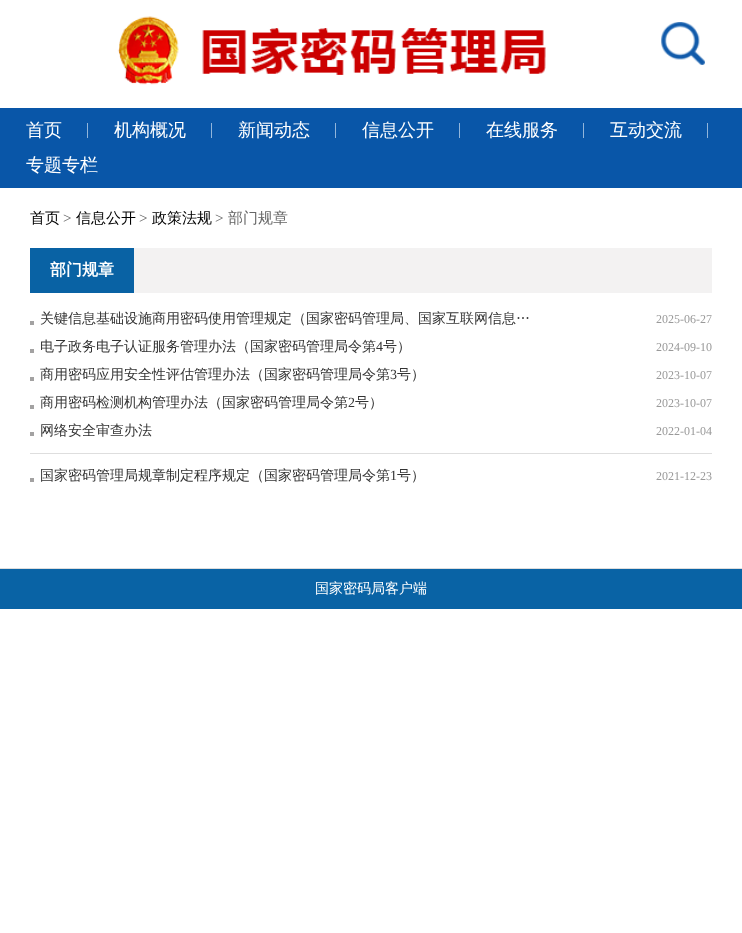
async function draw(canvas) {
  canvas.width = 742
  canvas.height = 933
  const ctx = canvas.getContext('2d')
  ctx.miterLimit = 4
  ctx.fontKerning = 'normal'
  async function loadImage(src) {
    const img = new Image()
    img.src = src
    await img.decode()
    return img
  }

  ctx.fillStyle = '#fff'
  ctx.fillRect(0, 0, 742, 933)
  ctx.drawImage(await loadImage('image0.png'), 117, 16, 429, 69)
  ctx.drawImage(await loadImage('image1.png'), 661, 22, 44, 43)
  ctx.fillStyle = '#0956a8'
  ctx.fillRect(0, 108, 742, 80)
  ctx.fillStyle = '#91b5db'
  ctx.fillRect(87, 123, 1, 15)
  ctx.font = '500 18px WenQuanYi Zen Hei'
  ctx.fillStyle = '#fff'
  ctx.fillText('首页', 26, 136)
  ctx.fillStyle = '#91b5db'
  ctx.fillRect(211, 123, 1, 15)
  ctx.fillStyle = '#fff'
  ctx.fillText('机构概况', 114, 136)
  ctx.fillStyle = '#91b5db'
  ctx.fillRect(335, 123, 1, 15)
  ctx.fillStyle = '#fff'
  ctx.fillText('新闻动态', 238, 136)
  ctx.fillStyle = '#91b5db'
  ctx.fillRect(459, 123, 1, 15)
  ctx.fillStyle = '#fff'
  ctx.fillText('信息公开', 362, 136)
  ctx.fillStyle = '#91b5db'
  ctx.fillRect(583, 123, 1, 15)
  ctx.fillStyle = '#fff'
  ctx.fillText('在线服务', 486, 136)
  ctx.fillStyle = '#91b5db'
  ctx.fillRect(707, 123, 1, 15)
  ctx.fillStyle = '#fff'
  ctx.fillText('互动交流', 610, 136)
  ctx.fillText('专题专栏', 26, 171)
  ctx.font = '500 15px WenQuanYi Zen Hei'
  ctx.fillStyle = '#000'
  ctx.fillText('首页', 30, 223)
  ctx.font = '15px Liberation Serif'
  ctx.fillStyle = '#666'
  ctx.fillText('>', 63, 223)
  ctx.font = '500 15px WenQuanYi Zen Hei'
  ctx.fillStyle = '#000'
  ctx.fillText('信息公开', 76, 223)
  ctx.font = '15px Liberation Serif'
  ctx.fillStyle = '#666'
  ctx.fillText('>', 139, 223)
  ctx.font = '500 15px WenQuanYi Zen Hei'
  ctx.fillStyle = '#000'
  ctx.fillText('政策法规', 152, 223)
  ctx.font = '15px Liberation Serif'
  ctx.fillStyle = '#666'
  ctx.fillText('>', 215, 223)
  ctx.font = '500 15px WenQuanYi Zen Hei'
  ctx.fillText('部门规章', 228, 223)
  ctx.fillStyle = '#f3f2f2'
  ctx.fillRect(134, 248, 578, 45)
  ctx.fillStyle = '#0962a4'
  ctx.fillRect(30, 248, 104, 45)
  ctx.font = 'bold 16px WenQuanYi Zen Hei'
  ctx.fillStyle = '#fff'
  ctx.fillText('部门规章', 50, 275)
  ctx.fillStyle = '#a3a2a2'
  ctx.fillRect(30, 321, 4, 4)
  ctx.font = '500 14px WenQuanYi Zen Hei'
  ctx.fillStyle = '#333'
  ctx.fillText('关键信息基础设施商用密码使用管理规定（国家密码管理局、国家互联网信息…', 40, 323)
  ctx.font = '12px Liberation Serif'
  ctx.fillStyle = '#999'
  ctx.fillText('2025-06-27', 656, 323)
  ctx.fillStyle = '#a3a2a2'
  ctx.fillRect(30, 349, 4, 4)
  ctx.font = '500 14px WenQuanYi Zen Hei'
  ctx.fillStyle = '#333'
  ctx.fillText('电子政务电子认证服务管理办法（国家密码管理局令第', 40, 351)
  ctx.font = '14px Liberation Serif'
  ctx.fillText('4', 376, 351)
  ctx.font = '500 14px WenQuanYi Zen Hei'
  ctx.fillText('号）', 383, 351)
  ctx.font = '12px Liberation Serif'
  ctx.fillStyle = '#999'
  ctx.fillText('2024-09-10', 656, 351)
  ctx.fillStyle = '#a3a2a2'
  ctx.fillRect(30, 377, 4, 4)
  ctx.font = '500 14px WenQuanYi Zen Hei'
  ctx.fillStyle = '#333'
  ctx.fillText('商用密码应用安全性评估管理办法（国家密码管理局令第', 40, 379)
  ctx.font = '14px Liberation Serif'
  ctx.fillText('3', 390, 379)
  ctx.font = '500 14px WenQuanYi Zen Hei'
  ctx.fillText('号）', 397, 379)
  ctx.font = '12px Liberation Serif'
  ctx.fillStyle = '#999'
  ctx.fillText('2023-10-07', 656, 379)
  ctx.fillStyle = '#a3a2a2'
  ctx.fillRect(30, 405, 4, 4)
  ctx.font = '500 14px WenQuanYi Zen Hei'
  ctx.fillStyle = '#333'
  ctx.fillText('商用密码检测机构管理办法（国家密码管理局令第', 40, 407)
  ctx.font = '14px Liberation Serif'
  ctx.fillText('2', 348, 407)
  ctx.font = '500 14px WenQuanYi Zen Hei'
  ctx.fillText('号）', 355, 407)
  ctx.font = '12px Liberation Serif'
  ctx.fillStyle = '#999'
  ctx.fillText('2023-10-07', 656, 407)
  ctx.fillStyle = '#a3a2a2'
  ctx.fillRect(30, 432, 4, 4)
  ctx.fillStyle = '#dedede'
  ctx.fillRect(30, 453, 682, 1)
  ctx.font = '500 14px WenQuanYi Zen Hei'
  ctx.fillStyle = '#333'
  ctx.fillText('网络安全审查办法', 40, 435)
  ctx.font = '12px Liberation Serif'
  ctx.fillStyle = '#999'
  ctx.fillText('2022-01-04', 656, 435)
  ctx.fillStyle = '#a3a2a2'
  ctx.fillRect(30, 478, 4, 4)
  ctx.font = '500 14px WenQuanYi Zen Hei'
  ctx.fillStyle = '#333'
  ctx.fillText('国家密码管理局规章制定程序规定（国家密码管理局令第', 40, 480)
  ctx.font = '14px Liberation Serif'
  ctx.fillText('1', 390, 480)
  ctx.font = '500 14px WenQuanYi Zen Hei'
  ctx.fillText('号）', 397, 480)
  ctx.font = '12px Liberation Serif'
  ctx.fillStyle = '#999'
  ctx.fillText('2021-12-23', 656, 480)
  ctx.fillStyle = '#0963a5'
  ctx.fillRect(0, 569, 742, 40)
  ctx.fillStyle = '#ddd'
  ctx.fillRect(0, 568, 742, 1)
  ctx.font = '500 14px WenQuanYi Zen Hei'
  ctx.fillStyle = '#fff'
  ctx.fillText('国家密码局客户端', 315, 593)
}

draw(document.querySelector('canvas'))
